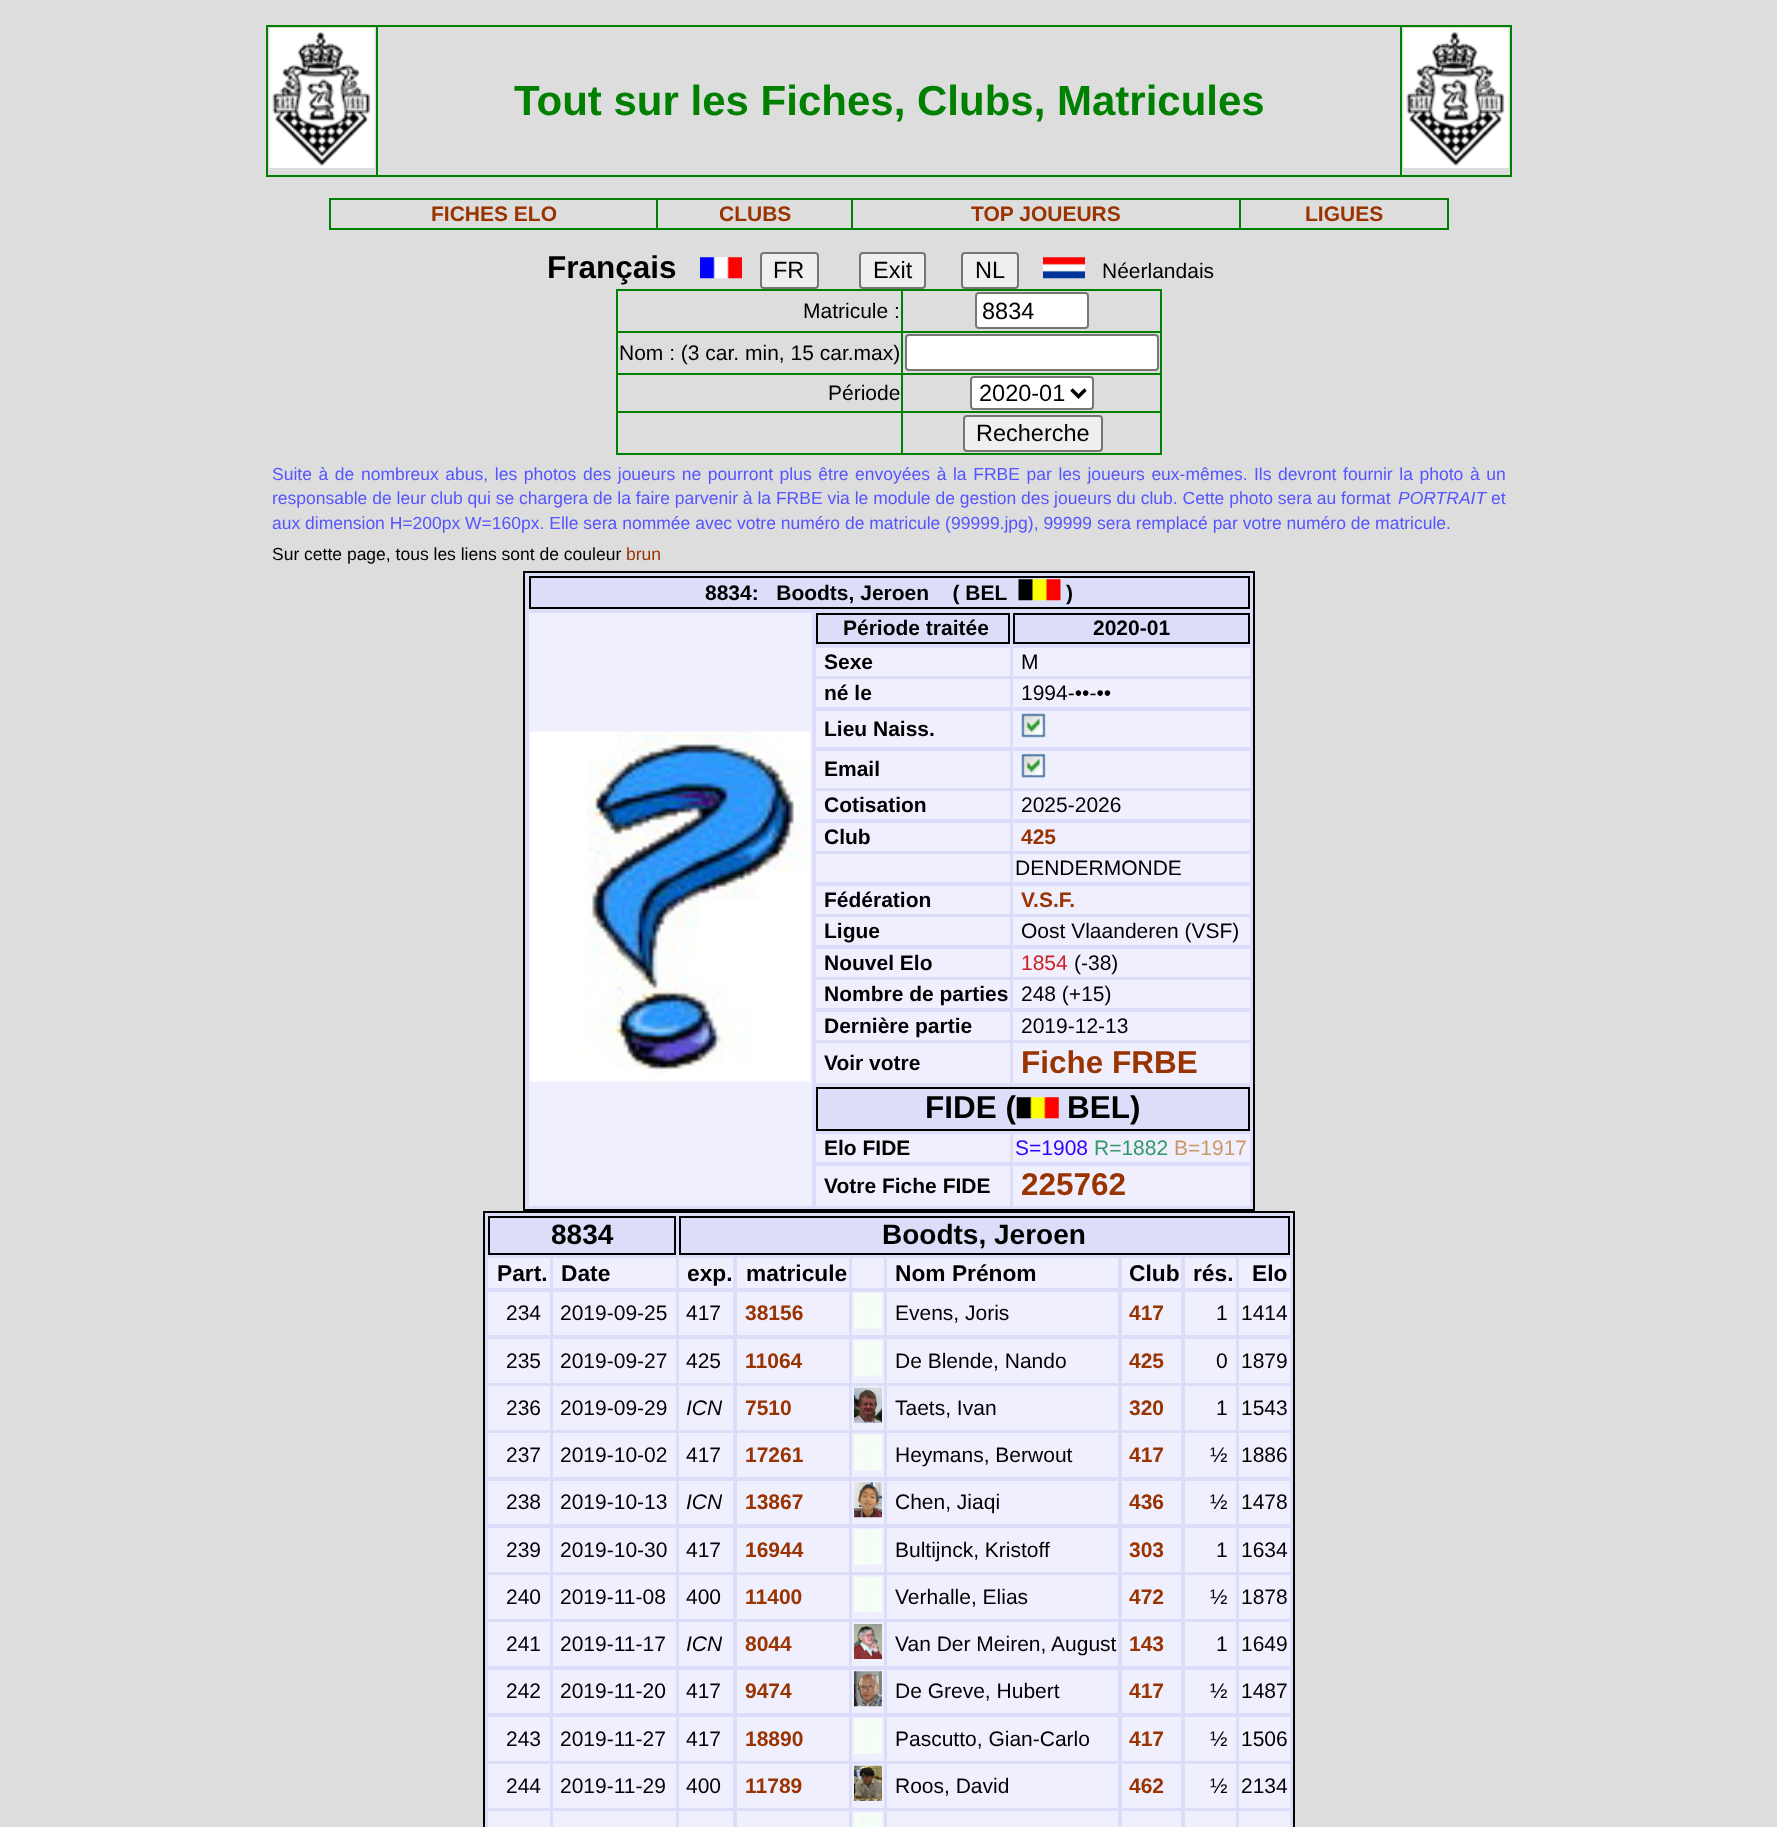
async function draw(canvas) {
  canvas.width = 1777
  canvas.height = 1827
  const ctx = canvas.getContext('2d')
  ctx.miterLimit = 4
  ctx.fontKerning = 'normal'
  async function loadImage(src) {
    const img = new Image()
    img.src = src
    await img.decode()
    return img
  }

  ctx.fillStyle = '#ddd'
  ctx.fillRect(0, 0, 1777, 1827)
  ctx.fillStyle = '#008000'
  ctx.fillRect(266, 25, 1246, 2)
  ctx.fillRect(1510, 25, 2, 152)
  ctx.fillRect(266, 175, 1246, 2)
  ctx.fillRect(266, 25, 2, 152)
  ctx.drawImage(await loadImage('image0.png'), 269, 28, 106, 140)
  ctx.fillRect(376, 25, 2, 152)
  ctx.font = 'bold 42px Liberation Sans'
  ctx.fillText('Tout sur les Fiches, Clubs, Matricules', 514, 115)
  ctx.fillRect(1400, 25, 2, 152)
  ctx.drawImage(await loadImage('image0.png'), 1403, 28, 106, 140)
  ctx.fillRect(329, 198, 1120, 2)
  ctx.fillRect(1447, 198, 2, 31)
  ctx.fillRect(329, 228, 1120, 2)
  ctx.fillRect(329, 198, 2, 31)
  ctx.font = 'bold 21px Liberation Sans'
  ctx.fillStyle = '#930'
  ctx.fillText('FICHES ELO', 431, 221)
  ctx.fillStyle = '#008000'
  ctx.fillRect(656, 198, 2, 31)
  ctx.fillStyle = '#930'
  ctx.fillText('CLUBS', 719, 221)
  ctx.fillStyle = '#008000'
  ctx.fillRect(851, 198, 2, 31)
  ctx.fillStyle = '#930'
  ctx.fillText('TOP JOUEURS', 971, 221)
  ctx.fillStyle = '#008000'
  ctx.fillRect(1239, 198, 2, 31)
  ctx.fillStyle = '#930'
  ctx.fillText('LIGUES', 1305, 221)
  ctx.font = 'bold 31.5px Liberation Sans'
  ctx.fillStyle = '#000'
  ctx.fillText('Français', 547, 278)
  ctx.drawImage(await loadImage('image1.png'), 700, 257, 42, 22)
  ctx.fillStyle = '#efefef'
  ctx.beginPath()
  ctx.roundRect(761, 253, 57, 35, 3)
  ctx.fill()
  ctx.strokeStyle = '#767676'
  ctx.lineWidth = 2
  ctx.stroke()
  ctx.font = '23.5px Liberation Sans'
  ctx.fillStyle = '#000'
  ctx.fillText('FR', 773, 278)
  ctx.fillStyle = '#efefef'
  ctx.beginPath()
  ctx.roundRect(860, 253, 65, 35, 3)
  ctx.fill()
  ctx.stroke()
  ctx.fillStyle = '#000'
  ctx.fillText('Exit', 873, 278)
  ctx.fillStyle = '#efefef'
  ctx.beginPath()
  ctx.roundRect(962, 253, 56, 35, 3)
  ctx.fill()
  ctx.stroke()
  ctx.fillStyle = '#000'
  ctx.fillText('NL', 975, 278)
  ctx.drawImage(await loadImage('image2.png'), 1043, 257, 42, 22)
  ctx.font = '21px Liberation Sans'
  ctx.fillText('Néerlandais', 1102, 278)
  ctx.fillStyle = '#008000'
  ctx.fillRect(616, 289, 546, 2)
  ctx.fillRect(616, 331, 546, 2)
  ctx.fillRect(616, 373, 546, 2)
  ctx.fillRect(616, 411, 546, 2)
  ctx.fillRect(1160, 411, 2, 44)
  ctx.fillRect(1160, 373, 2, 40)
  ctx.fillRect(1160, 331, 2, 44)
  ctx.fillRect(1160, 289, 2, 44)
  ctx.fillRect(616, 453, 546, 2)
  ctx.fillRect(616, 411, 2, 44)
  ctx.fillRect(616, 373, 2, 40)
  ctx.fillRect(616, 331, 2, 44)
  ctx.fillRect(616, 289, 2, 44)
  ctx.fillStyle = '#000'
  ctx.fillText('Matricule :', 803, 318)
  ctx.fillStyle = '#fff'
  ctx.beginPath()
  ctx.roundRect(976, 293, 112, 35, 3)
  ctx.fill()
  ctx.stroke()
  ctx.font = '23.5px Liberation Sans'
  ctx.fillStyle = '#000'
  ctx.fillText('8834', 982, 319)
  ctx.font = '21px Liberation Sans'
  ctx.fillText('Nom : (3 car. min, 15 car.max)', 619, 360)
  ctx.fillStyle = '#fff'
  ctx.beginPath()
  ctx.roundRect(906, 335, 252, 35, 3)
  ctx.fill()
  ctx.stroke()
  ctx.fillStyle = '#000'
  ctx.fillText('Période', 828, 400)
  ctx.fillStyle = '#fff'
  ctx.beginPath()
  ctx.roundRect(971, 377, 122, 32, 3)
  ctx.fill()
  ctx.stroke()
  ctx.beginPath()
  ctx.moveTo(1071.5, 389.5)
  ctx.lineTo(1078.5, 396.5)
  ctx.lineTo(1085.5, 389.5)
  ctx.strokeStyle = '#000'
  ctx.lineWidth = 3.5
  ctx.stroke()
  ctx.font = '23.5px Liberation Sans'
  ctx.fillStyle = '#000'
  ctx.fillText('2020-01', 979, 401)
  ctx.fillStyle = '#008000'
  ctx.fillRect(901, 289, 2, 166)
  ctx.fillStyle = '#efefef'
  ctx.beginPath()
  ctx.roundRect(964, 416, 138, 35, 3)
  ctx.fill()
  ctx.strokeStyle = '#767676'
  ctx.lineWidth = 2
  ctx.stroke()
  ctx.fillStyle = '#000'
  ctx.fillText('Recherche', 976, 441)
  ctx.wordSpacing = '1.75px'
  ctx.font = '17.5px Liberation Sans'
  ctx.fillStyle = '#55f'
  ctx.fillText('Suite à de nombreux abus, les photos des joueurs ne pourront plus être envoyées à la FRBE par les joueurs eux-mêmes.', 272, 480)
  ctx.fillText('Ils devront fournir la photo à un', 1254, 480)
  ctx.wordSpacing = '0px'
  ctx.fillText('responsable de leur club qui se chargera de la faire parvenir à la FRBE via le module de gestion des joueurs du club. Cette photo sera au format', 272, 504)
  ctx.font = 'italic 17.5px Liberation Sans'
  ctx.fillText('PORTRAIT', 1398, 504)
  ctx.font = '17.5px Liberation Sans'
  ctx.fillText('et', 1491, 504)
  ctx.fillText('aux dimension H=200px W=160px. Elle sera nommée avec votre numéro de matricule (99999.jpg), 99999 sera remplacé par votre numéro de matricule.', 272, 529)
  ctx.fillStyle = '#000'
  ctx.fillText('Sur cette page, tous les liens sont de couleur', 272, 560)
  ctx.fillStyle = '#930'
  ctx.fillText('brun', 626, 560)
  ctx.fillStyle = '#dbddf9'
  ctx.beginPath()
  ctx.rect(524, 572, 730, 638)
  ctx.fill()
  ctx.strokeStyle = '#000'
  ctx.stroke()
  ctx.strokeRect(530, 577, 719, 31)
  ctx.font = 'bold 21px Liberation Sans'
  ctx.fillStyle = '#000'
  ctx.fillText('8834:   Boodts, Jeroen    ( BEL', 705, 600)
  ctx.drawImage(await loadImage('image3.png'), 1018, 579, 43, 22)
  ctx.fillText(')', 1066, 600)
  ctx.fillStyle = '#f0effe'
  ctx.fillRect(529, 613, 283, 593)
  ctx.drawImage(await loadImage('image4.png'), 530, 731, 281, 351)
  ctx.strokeRect(817, 614, 192, 29)
  ctx.fillStyle = '#000'
  ctx.fillText('Période traitée', 843, 635)
  ctx.strokeRect(1014, 614, 235, 29)
  ctx.fillText('2020-01', 1093, 635)
  ctx.fillStyle = '#f0effe'
  ctx.fillRect(816, 648, 194, 28)
  ctx.fillStyle = '#000'
  ctx.fillText('Sexe', 824, 669)
  ctx.fillStyle = '#f0effe'
  ctx.fillRect(1013, 648, 237, 28)
  ctx.font = '21px Liberation Sans'
  ctx.fillStyle = '#000'
  ctx.fillText('M', 1021, 669)
  ctx.fillStyle = '#f0effe'
  ctx.fillRect(816, 679, 194, 28)
  ctx.font = 'bold 21px Liberation Sans'
  ctx.fillStyle = '#000'
  ctx.fillText('né le', 824, 700)
  ctx.fillStyle = '#f0effe'
  ctx.fillRect(1013, 679, 237, 28)
  ctx.font = '21px Liberation Sans'
  ctx.fillStyle = '#000'
  ctx.fillText('1994-••-••', 1021, 700)
  ctx.fillStyle = '#f0effe'
  ctx.fillRect(816, 711, 194, 36)
  ctx.font = 'bold 21px Liberation Sans'
  ctx.fillStyle = '#000'
  ctx.fillText('Lieu Naiss.', 824, 736)
  ctx.fillStyle = '#f0effe'
  ctx.fillRect(1013, 711, 237, 36)
  ctx.drawImage(await loadImage('image5.png'), 1021, 713, 25, 25)
  ctx.fillRect(816, 751, 194, 37)
  ctx.fillStyle = '#000'
  ctx.fillText('Email', 824, 776)
  ctx.fillStyle = '#f0effe'
  ctx.fillRect(1013, 751, 237, 37)
  ctx.drawImage(await loadImage('image6.png'), 1021, 753, 25, 25)
  ctx.fillRect(816, 791, 194, 28)
  ctx.fillStyle = '#000'
  ctx.fillText('Cotisation', 824, 812)
  ctx.fillStyle = '#f0effe'
  ctx.fillRect(1013, 791, 237, 28)
  ctx.font = '21px Liberation Sans'
  ctx.fillStyle = '#000'
  ctx.fillText('2025-2026', 1021, 812)
  ctx.fillStyle = '#f0effe'
  ctx.fillRect(816, 823, 194, 28)
  ctx.font = 'bold 21px Liberation Sans'
  ctx.fillStyle = '#000'
  ctx.fillText('Club', 824, 844)
  ctx.fillStyle = '#f0effe'
  ctx.fillRect(1013, 823, 237, 28)
  ctx.fillStyle = '#930'
  ctx.fillText('425', 1021, 844)
  ctx.fillStyle = '#f0effe'
  ctx.fillRect(816, 854, 194, 28)
  ctx.fillRect(1013, 854, 237, 28)
  ctx.font = '21px Liberation Sans'
  ctx.fillStyle = '#000'
  ctx.fillText('DENDERMONDE', 1015, 875)
  ctx.fillStyle = '#f0effe'
  ctx.fillRect(816, 886, 194, 28)
  ctx.font = 'bold 21px Liberation Sans'
  ctx.fillStyle = '#000'
  ctx.fillText('Fédération', 824, 907)
  ctx.fillStyle = '#f0effe'
  ctx.fillRect(1013, 886, 237, 28)
  ctx.fillStyle = '#930'
  ctx.fillText('V.S.F.', 1021, 907)
  ctx.fillStyle = '#f0effe'
  ctx.fillRect(816, 917, 194, 28)
  ctx.fillStyle = '#000'
  ctx.fillText('Ligue', 824, 938)
  ctx.fillStyle = '#f0effe'
  ctx.fillRect(1013, 917, 237, 28)
  ctx.font = '21px Liberation Sans'
  ctx.fillStyle = '#000'
  ctx.fillText('Oost Vlaanderen (VSF)', 1021, 938)
  ctx.fillStyle = '#f0effe'
  ctx.fillRect(816, 949, 194, 28)
  ctx.font = 'bold 21px Liberation Sans'
  ctx.fillStyle = '#000'
  ctx.fillText('Nouvel Elo', 824, 970)
  ctx.fillStyle = '#f0effe'
  ctx.fillRect(1013, 949, 237, 28)
  ctx.font = '21px Liberation Sans'
  ctx.fillStyle = '#ce2020'
  ctx.fillText('1854', 1021, 970)
  ctx.fillStyle = '#000'
  ctx.fillText('(-38)', 1074, 970)
  ctx.fillStyle = '#f0effe'
  ctx.fillRect(816, 980, 194, 28)
  ctx.font = 'bold 21px Liberation Sans'
  ctx.fillStyle = '#000'
  ctx.fillText('Nombre de parties', 824, 1001)
  ctx.fillStyle = '#f0effe'
  ctx.fillRect(1013, 980, 237, 28)
  ctx.font = '21px Liberation Sans'
  ctx.fillStyle = '#000'
  ctx.fillText('248 (+15)', 1021, 1001)
  ctx.fillStyle = '#f0effe'
  ctx.fillRect(816, 1012, 194, 28)
  ctx.font = 'bold 21px Liberation Sans'
  ctx.fillStyle = '#000'
  ctx.fillText('Dernière partie', 824, 1033)
  ctx.fillStyle = '#f0effe'
  ctx.fillRect(1013, 1012, 237, 28)
  ctx.font = '21px Liberation Sans'
  ctx.fillStyle = '#000'
  ctx.fillText('2019-12-13', 1021, 1033)
  ctx.fillStyle = '#f0effe'
  ctx.fillRect(816, 1043, 194, 40)
  ctx.font = 'bold 21px Liberation Sans'
  ctx.fillStyle = '#000'
  ctx.fillText('Voir votre', 824, 1070)
  ctx.fillStyle = '#f0effe'
  ctx.fillRect(1013, 1043, 237, 40)
  ctx.font = 'bold 31.5px Liberation Sans'
  ctx.fillStyle = '#930'
  ctx.fillText('Fiche FRBE', 1021, 1073)
  ctx.strokeRect(817, 1088, 432, 42)
  ctx.fillStyle = '#000'
  ctx.fillText('FIDE (', 925, 1118)
  ctx.drawImage(await loadImage('image7.png'), 1016, 1097, 43, 22)
  ctx.fillText('BEL)', 1067, 1118)
  ctx.fillStyle = '#f0effe'
  ctx.fillRect(816, 1134, 194, 28)
  ctx.font = 'bold 21px Liberation Sans'
  ctx.fillStyle = '#000'
  ctx.fillText('Elo FIDE', 824, 1155)
  ctx.fillStyle = '#f0effe'
  ctx.fillRect(1013, 1134, 237, 28)
  ctx.font = '21px Liberation Sans'
  ctx.fillStyle = '#30f'
  ctx.fillText('S=1908', 1015, 1155)
  ctx.fillStyle = '#396'
  ctx.fillText('R=1882', 1094, 1155)
  ctx.fillStyle = '#c96'
  ctx.fillText('B=1917', 1174, 1155)
  ctx.fillStyle = '#f0effe'
  ctx.fillRect(816, 1166, 194, 40)
  ctx.font = 'bold 21px Liberation Sans'
  ctx.fillStyle = '#000'
  ctx.fillText('Votre Fiche FIDE', 824, 1193)
  ctx.fillStyle = '#f0effe'
  ctx.fillRect(1013, 1166, 237, 40)
  ctx.font = 'bold 31.5px Liberation Sans'
  ctx.fillStyle = '#930'
  ctx.fillText('225762', 1021, 1195)
  ctx.fillStyle = '#dbddf9'
  ctx.beginPath()
  ctx.rect(484, 1212, 810, 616)
  ctx.fill()
  ctx.stroke()
  ctx.strokeRect(489, 1217, 186, 37)
  ctx.font = 'bold 28px Liberation Sans'
  ctx.fillStyle = '#000'
  ctx.fillText('8834', 551, 1244)
  ctx.strokeRect(680, 1217, 609, 37)
  ctx.fillText('Boodts, Jeroen', 882, 1244)
  ctx.fillStyle = '#f0effe'
  ctx.fillRect(488, 1258, 62, 30)
  ctx.font = 'bold 22.75px Liberation Sans'
  ctx.fillStyle = '#000'
  ctx.fillText('Part.', 497, 1281)
  ctx.fillStyle = '#f0effe'
  ctx.fillRect(553, 1258, 123, 30)
  ctx.fillStyle = '#000'
  ctx.fillText('Date', 561, 1281)
  ctx.fillStyle = '#f0effe'
  ctx.fillRect(679, 1258, 54, 30)
  ctx.fillStyle = '#000'
  ctx.fillText('exp.', 687, 1281)
  ctx.fillStyle = '#f0effe'
  ctx.fillRect(737, 1258, 112, 30)
  ctx.fillStyle = '#000'
  ctx.fillText('matricule', 746, 1281)
  ctx.fillStyle = '#f0effe'
  ctx.fillRect(852, 1258, 32, 30)
  ctx.fillRect(887, 1258, 231, 30)
  ctx.fillStyle = '#000'
  ctx.fillText('Nom Prénom', 895, 1281)
  ctx.fillStyle = '#f0effe'
  ctx.fillRect(1122, 1258, 59, 30)
  ctx.fillStyle = '#000'
  ctx.fillText('Club', 1129, 1281)
  ctx.fillStyle = '#f0effe'
  ctx.fillRect(1185, 1258, 51, 30)
  ctx.fillStyle = '#000'
  ctx.fillText('rés.', 1193, 1281)
  ctx.fillStyle = '#f0effe'
  ctx.fillRect(1239, 1258, 51, 30)
  ctx.fillStyle = '#000'
  ctx.fillText('Elo', 1252, 1281)
  ctx.fillStyle = '#f0effe'
  ctx.fillRect(488, 1292, 62, 43)
  ctx.font = '21px Liberation Sans'
  ctx.fillStyle = '#000'
  ctx.fillText('234', 506, 1320)
  ctx.fillStyle = '#f0effe'
  ctx.fillRect(553, 1292, 123, 43)
  ctx.fillStyle = '#000'
  ctx.fillText('2019-09-25', 560, 1320)
  ctx.fillStyle = '#f0effe'
  ctx.fillRect(679, 1292, 54, 43)
  ctx.fillStyle = '#000'
  ctx.fillText('417', 686, 1320)
  ctx.fillStyle = '#f0effe'
  ctx.fillRect(737, 1292, 112, 43)
  ctx.font = 'bold 21px Liberation Sans'
  ctx.fillStyle = '#930'
  ctx.fillText('38156', 745, 1320)
  ctx.fillStyle = '#f0effe'
  ctx.fillRect(852, 1292, 32, 43)
  ctx.drawImage(await loadImage('image8.png'), 854, 1293, 28, 36)
  ctx.fillRect(887, 1292, 231, 43)
  ctx.font = '21px Liberation Sans'
  ctx.fillStyle = '#000'
  ctx.fillText('Evens, Joris', 895, 1320)
  ctx.fillStyle = '#f0effe'
  ctx.fillRect(1122, 1292, 59, 43)
  ctx.font = 'bold 21px Liberation Sans'
  ctx.fillStyle = '#930'
  ctx.fillText('417', 1129, 1320)
  ctx.fillStyle = '#f0effe'
  ctx.fillRect(1185, 1292, 51, 43)
  ctx.font = '21px Liberation Sans'
  ctx.fillStyle = '#000'
  ctx.fillText('1', 1216, 1320)
  ctx.fillStyle = '#f0effe'
  ctx.fillRect(1239, 1292, 51, 43)
  ctx.fillStyle = '#000'
  ctx.fillText('1414', 1241, 1320)
  ctx.fillStyle = '#f0effe'
  ctx.fillRect(488, 1339, 62, 44)
  ctx.fillStyle = '#000'
  ctx.fillText('235', 506, 1368)
  ctx.fillStyle = '#f0effe'
  ctx.fillRect(553, 1339, 123, 44)
  ctx.fillStyle = '#000'
  ctx.fillText('2019-09-27', 560, 1368)
  ctx.fillStyle = '#f0effe'
  ctx.fillRect(679, 1339, 54, 44)
  ctx.fillStyle = '#000'
  ctx.fillText('425', 686, 1368)
  ctx.fillStyle = '#f0effe'
  ctx.fillRect(737, 1339, 112, 44)
  ctx.font = 'bold 21px Liberation Sans'
  ctx.fillStyle = '#930'
  ctx.fillText('11064', 745, 1368)
  ctx.fillStyle = '#f0effe'
  ctx.fillRect(852, 1339, 32, 44)
  ctx.drawImage(await loadImage('image9.png'), 854, 1340, 28, 36)
  ctx.fillRect(887, 1339, 231, 44)
  ctx.font = '21px Liberation Sans'
  ctx.fillStyle = '#000'
  ctx.fillText('De Blende, Nando', 895, 1368)
  ctx.fillStyle = '#f0effe'
  ctx.fillRect(1122, 1339, 59, 44)
  ctx.font = 'bold 21px Liberation Sans'
  ctx.fillStyle = '#930'
  ctx.fillText('425', 1129, 1368)
  ctx.fillStyle = '#f0effe'
  ctx.fillRect(1185, 1339, 51, 44)
  ctx.font = '21px Liberation Sans'
  ctx.fillStyle = '#000'
  ctx.fillText('0', 1216, 1368)
  ctx.fillStyle = '#f0effe'
  ctx.fillRect(1239, 1339, 51, 44)
  ctx.fillStyle = '#000'
  ctx.fillText('1879', 1241, 1368)
  ctx.fillStyle = '#f0effe'
  ctx.fillRect(488, 1386, 62, 44)
  ctx.fillStyle = '#000'
  ctx.fillText('236', 506, 1415)
  ctx.fillStyle = '#f0effe'
  ctx.fillRect(553, 1386, 123, 44)
  ctx.fillStyle = '#000'
  ctx.fillText('2019-09-29', 560, 1415)
  ctx.fillStyle = '#f0effe'
  ctx.fillRect(679, 1386, 54, 44)
  ctx.font = 'italic 21px Liberation Sans'
  ctx.fillStyle = '#000'
  ctx.fillText('ICN', 686, 1415)
  ctx.fillStyle = '#f0effe'
  ctx.fillRect(737, 1386, 112, 44)
  ctx.font = 'bold 21px Liberation Sans'
  ctx.fillStyle = '#930'
  ctx.fillText('7510', 745, 1415)
  ctx.fillStyle = '#f0effe'
  ctx.fillRect(852, 1386, 32, 44)
  ctx.drawImage(await loadImage('image10.png'), 854, 1387, 28, 36)
  ctx.fillRect(887, 1386, 231, 44)
  ctx.font = '21px Liberation Sans'
  ctx.fillStyle = '#000'
  ctx.fillText('Taets, Ivan', 895, 1415)
  ctx.fillStyle = '#f0effe'
  ctx.fillRect(1122, 1386, 59, 44)
  ctx.font = 'bold 21px Liberation Sans'
  ctx.fillStyle = '#930'
  ctx.fillText('320', 1129, 1415)
  ctx.fillStyle = '#f0effe'
  ctx.fillRect(1185, 1386, 51, 44)
  ctx.font = '21px Liberation Sans'
  ctx.fillStyle = '#000'
  ctx.fillText('1', 1216, 1415)
  ctx.fillStyle = '#f0effe'
  ctx.fillRect(1239, 1386, 51, 44)
  ctx.fillStyle = '#000'
  ctx.fillText('1543', 1241, 1415)
  ctx.fillStyle = '#f0effe'
  ctx.fillRect(488, 1433, 62, 44)
  ctx.fillStyle = '#000'
  ctx.fillText('237', 506, 1462)
  ctx.fillStyle = '#f0effe'
  ctx.fillRect(553, 1433, 123, 44)
  ctx.fillStyle = '#000'
  ctx.fillText('2019-10-02', 560, 1462)
  ctx.fillStyle = '#f0effe'
  ctx.fillRect(679, 1433, 54, 44)
  ctx.fillStyle = '#000'
  ctx.fillText('417', 686, 1462)
  ctx.fillStyle = '#f0effe'
  ctx.fillRect(737, 1433, 112, 44)
  ctx.font = 'bold 21px Liberation Sans'
  ctx.fillStyle = '#930'
  ctx.fillText('17261', 745, 1462)
  ctx.fillStyle = '#f0effe'
  ctx.fillRect(852, 1433, 32, 44)
  ctx.drawImage(await loadImage('image11.png'), 854, 1435, 28, 35)
  ctx.fillRect(887, 1433, 231, 44)
  ctx.font = '21px Liberation Sans'
  ctx.fillStyle = '#000'
  ctx.fillText('Heymans, Berwout', 895, 1462)
  ctx.fillStyle = '#f0effe'
  ctx.fillRect(1122, 1433, 59, 44)
  ctx.font = 'bold 21px Liberation Sans'
  ctx.fillStyle = '#930'
  ctx.fillText('417', 1129, 1462)
  ctx.fillStyle = '#f0effe'
  ctx.fillRect(1185, 1433, 51, 44)
  ctx.font = '21px Liberation Sans'
  ctx.fillStyle = '#000'
  ctx.fillText('½', 1210, 1462)
  ctx.fillStyle = '#f0effe'
  ctx.fillRect(1239, 1433, 51, 44)
  ctx.fillStyle = '#000'
  ctx.fillText('1886', 1241, 1462)
  ctx.fillStyle = '#f0effe'
  ctx.fillRect(488, 1481, 62, 43)
  ctx.fillStyle = '#000'
  ctx.fillText('238', 506, 1509)
  ctx.fillStyle = '#f0effe'
  ctx.fillRect(553, 1481, 123, 43)
  ctx.fillStyle = '#000'
  ctx.fillText('2019-10-13', 560, 1509)
  ctx.fillStyle = '#f0effe'
  ctx.fillRect(679, 1481, 54, 43)
  ctx.font = 'italic 21px Liberation Sans'
  ctx.fillStyle = '#000'
  ctx.fillText('ICN', 686, 1509)
  ctx.fillStyle = '#f0effe'
  ctx.fillRect(737, 1481, 112, 43)
  ctx.font = 'bold 21px Liberation Sans'
  ctx.fillStyle = '#930'
  ctx.fillText('13867', 745, 1509)
  ctx.fillStyle = '#f0effe'
  ctx.fillRect(852, 1481, 32, 43)
  ctx.drawImage(await loadImage('image12.png'), 854, 1482, 28, 36)
  ctx.fillRect(887, 1481, 231, 43)
  ctx.font = '21px Liberation Sans'
  ctx.fillStyle = '#000'
  ctx.fillText('Chen, Jiaqi', 895, 1509)
  ctx.fillStyle = '#f0effe'
  ctx.fillRect(1122, 1481, 59, 43)
  ctx.font = 'bold 21px Liberation Sans'
  ctx.fillStyle = '#930'
  ctx.fillText('436', 1129, 1509)
  ctx.fillStyle = '#f0effe'
  ctx.fillRect(1185, 1481, 51, 43)
  ctx.font = '21px Liberation Sans'
  ctx.fillStyle = '#000'
  ctx.fillText('½', 1210, 1509)
  ctx.fillStyle = '#f0effe'
  ctx.fillRect(1239, 1481, 51, 43)
  ctx.fillStyle = '#000'
  ctx.fillText('1478', 1241, 1509)
  ctx.fillStyle = '#f0effe'
  ctx.fillRect(488, 1528, 62, 44)
  ctx.fillStyle = '#000'
  ctx.fillText('239', 506, 1557)
  ctx.fillStyle = '#f0effe'
  ctx.fillRect(553, 1528, 123, 44)
  ctx.fillStyle = '#000'
  ctx.fillText('2019-10-30', 560, 1557)
  ctx.fillStyle = '#f0effe'
  ctx.fillRect(679, 1528, 54, 44)
  ctx.fillStyle = '#000'
  ctx.fillText('417', 686, 1557)
  ctx.fillStyle = '#f0effe'
  ctx.fillRect(737, 1528, 112, 44)
  ctx.font = 'bold 21px Liberation Sans'
  ctx.fillStyle = '#930'
  ctx.fillText('16944', 745, 1557)
  ctx.fillStyle = '#f0effe'
  ctx.fillRect(852, 1528, 32, 44)
  ctx.drawImage(await loadImage('image9.png'), 854, 1529, 28, 36)
  ctx.fillRect(887, 1528, 231, 44)
  ctx.font = '21px Liberation Sans'
  ctx.fillStyle = '#000'
  ctx.fillText('Bultijnck, Kristoff', 895, 1557)
  ctx.fillStyle = '#f0effe'
  ctx.fillRect(1122, 1528, 59, 44)
  ctx.font = 'bold 21px Liberation Sans'
  ctx.fillStyle = '#930'
  ctx.fillText('303', 1129, 1557)
  ctx.fillStyle = '#f0effe'
  ctx.fillRect(1185, 1528, 51, 44)
  ctx.font = '21px Liberation Sans'
  ctx.fillStyle = '#000'
  ctx.fillText('1', 1216, 1557)
  ctx.fillStyle = '#f0effe'
  ctx.fillRect(1239, 1528, 51, 44)
  ctx.fillStyle = '#000'
  ctx.fillText('1634', 1241, 1557)
  ctx.fillStyle = '#f0effe'
  ctx.fillRect(488, 1575, 62, 44)
  ctx.fillStyle = '#000'
  ctx.fillText('240', 506, 1604)
  ctx.fillStyle = '#f0effe'
  ctx.fillRect(553, 1575, 123, 44)
  ctx.fillStyle = '#000'
  ctx.fillText('2019-11-08', 560, 1604)
  ctx.fillStyle = '#f0effe'
  ctx.fillRect(679, 1575, 54, 44)
  ctx.fillStyle = '#000'
  ctx.fillText('400', 686, 1604)
  ctx.fillStyle = '#f0effe'
  ctx.fillRect(737, 1575, 112, 44)
  ctx.font = 'bold 21px Liberation Sans'
  ctx.fillStyle = '#930'
  ctx.fillText('11400', 745, 1604)
  ctx.fillStyle = '#f0effe'
  ctx.fillRect(852, 1575, 32, 44)
  ctx.drawImage(await loadImage('image13.png'), 854, 1576, 28, 36)
  ctx.fillRect(887, 1575, 231, 44)
  ctx.font = '21px Liberation Sans'
  ctx.fillStyle = '#000'
  ctx.fillText('Verhalle, Elias', 895, 1604)
  ctx.fillStyle = '#f0effe'
  ctx.fillRect(1122, 1575, 59, 44)
  ctx.font = 'bold 21px Liberation Sans'
  ctx.fillStyle = '#930'
  ctx.fillText('472', 1129, 1604)
  ctx.fillStyle = '#f0effe'
  ctx.fillRect(1185, 1575, 51, 44)
  ctx.font = '21px Liberation Sans'
  ctx.fillStyle = '#000'
  ctx.fillText('½', 1210, 1604)
  ctx.fillStyle = '#f0effe'
  ctx.fillRect(1239, 1575, 51, 44)
  ctx.fillStyle = '#000'
  ctx.fillText('1878', 1241, 1604)
  ctx.fillStyle = '#f0effe'
  ctx.fillRect(488, 1622, 62, 44)
  ctx.fillStyle = '#000'
  ctx.fillText('241', 506, 1651)
  ctx.fillStyle = '#f0effe'
  ctx.fillRect(553, 1622, 123, 44)
  ctx.fillStyle = '#000'
  ctx.fillText('2019-11-17', 560, 1651)
  ctx.fillStyle = '#f0effe'
  ctx.fillRect(679, 1622, 54, 44)
  ctx.font = 'italic 21px Liberation Sans'
  ctx.fillStyle = '#000'
  ctx.fillText('ICN', 686, 1651)
  ctx.fillStyle = '#f0effe'
  ctx.fillRect(737, 1622, 112, 44)
  ctx.font = 'bold 21px Liberation Sans'
  ctx.fillStyle = '#930'
  ctx.fillText('8044', 745, 1651)
  ctx.fillStyle = '#f0effe'
  ctx.fillRect(852, 1622, 32, 44)
  ctx.drawImage(await loadImage('image14.png'), 854, 1624, 28, 35)
  ctx.fillRect(887, 1622, 231, 44)
  ctx.font = '21px Liberation Sans'
  ctx.fillStyle = '#000'
  ctx.fillText('Van Der Meiren, August', 895, 1651)
  ctx.fillStyle = '#f0effe'
  ctx.fillRect(1122, 1622, 59, 44)
  ctx.font = 'bold 21px Liberation Sans'
  ctx.fillStyle = '#930'
  ctx.fillText('143', 1129, 1651)
  ctx.fillStyle = '#f0effe'
  ctx.fillRect(1185, 1622, 51, 44)
  ctx.font = '21px Liberation Sans'
  ctx.fillStyle = '#000'
  ctx.fillText('1', 1216, 1651)
  ctx.fillStyle = '#f0effe'
  ctx.fillRect(1239, 1622, 51, 44)
  ctx.fillStyle = '#000'
  ctx.fillText('1649', 1241, 1651)
  ctx.fillStyle = '#f0effe'
  ctx.fillRect(488, 1670, 62, 43)
  ctx.fillStyle = '#000'
  ctx.fillText('242', 506, 1698)
  ctx.fillStyle = '#f0effe'
  ctx.fillRect(553, 1670, 123, 43)
  ctx.fillStyle = '#000'
  ctx.fillText('2019-11-20', 560, 1698)
  ctx.fillStyle = '#f0effe'
  ctx.fillRect(679, 1670, 54, 43)
  ctx.fillStyle = '#000'
  ctx.fillText('417', 686, 1698)
  ctx.fillStyle = '#f0effe'
  ctx.fillRect(737, 1670, 112, 43)
  ctx.font = 'bold 21px Liberation Sans'
  ctx.fillStyle = '#930'
  ctx.fillText('9474', 745, 1698)
  ctx.fillStyle = '#f0effe'
  ctx.fillRect(852, 1670, 32, 43)
  ctx.drawImage(await loadImage('image15.png'), 854, 1671, 28, 36)
  ctx.fillRect(887, 1670, 231, 43)
  ctx.font = '21px Liberation Sans'
  ctx.fillStyle = '#000'
  ctx.fillText('De Greve, Hubert', 895, 1698)
  ctx.fillStyle = '#f0effe'
  ctx.fillRect(1122, 1670, 59, 43)
  ctx.font = 'bold 21px Liberation Sans'
  ctx.fillStyle = '#930'
  ctx.fillText('417', 1129, 1698)
  ctx.fillStyle = '#f0effe'
  ctx.fillRect(1185, 1670, 51, 43)
  ctx.font = '21px Liberation Sans'
  ctx.fillStyle = '#000'
  ctx.fillText('½', 1210, 1698)
  ctx.fillStyle = '#f0effe'
  ctx.fillRect(1239, 1670, 51, 43)
  ctx.fillStyle = '#000'
  ctx.fillText('1487', 1241, 1698)
  ctx.fillStyle = '#f0effe'
  ctx.fillRect(488, 1717, 62, 44)
  ctx.fillStyle = '#000'
  ctx.fillText('243', 506, 1746)
  ctx.fillStyle = '#f0effe'
  ctx.fillRect(553, 1717, 123, 44)
  ctx.fillStyle = '#000'
  ctx.fillText('2019-11-27', 560, 1746)
  ctx.fillStyle = '#f0effe'
  ctx.fillRect(679, 1717, 54, 44)
  ctx.fillStyle = '#000'
  ctx.fillText('417', 686, 1746)
  ctx.fillStyle = '#f0effe'
  ctx.fillRect(737, 1717, 112, 44)
  ctx.font = 'bold 21px Liberation Sans'
  ctx.fillStyle = '#930'
  ctx.fillText('18890', 745, 1746)
  ctx.fillStyle = '#f0effe'
  ctx.fillRect(852, 1717, 32, 44)
  ctx.drawImage(await loadImage('image9.png'), 854, 1718, 28, 36)
  ctx.fillRect(887, 1717, 231, 44)
  ctx.font = '21px Liberation Sans'
  ctx.fillStyle = '#000'
  ctx.fillText('Pascutto, Gian-Carlo', 895, 1746)
  ctx.fillStyle = '#f0effe'
  ctx.fillRect(1122, 1717, 59, 44)
  ctx.font = 'bold 21px Liberation Sans'
  ctx.fillStyle = '#930'
  ctx.fillText('417', 1129, 1746)
  ctx.fillStyle = '#f0effe'
  ctx.fillRect(1185, 1717, 51, 44)
  ctx.font = '21px Liberation Sans'
  ctx.fillStyle = '#000'
  ctx.fillText('½', 1210, 1746)
  ctx.fillStyle = '#f0effe'
  ctx.fillRect(1239, 1717, 51, 44)
  ctx.fillStyle = '#000'
  ctx.fillText('1506', 1241, 1746)
  ctx.fillStyle = '#f0effe'
  ctx.fillRect(488, 1764, 62, 44)
  ctx.fillStyle = '#000'
  ctx.fillText('244', 506, 1793)
  ctx.fillStyle = '#f0effe'
  ctx.fillRect(553, 1764, 123, 44)
  ctx.fillStyle = '#000'
  ctx.fillText('2019-11-29', 560, 1793)
  ctx.fillStyle = '#f0effe'
  ctx.fillRect(679, 1764, 54, 44)
  ctx.fillStyle = '#000'
  ctx.fillText('400', 686, 1793)
  ctx.fillStyle = '#f0effe'
  ctx.fillRect(737, 1764, 112, 44)
  ctx.font = 'bold 21px Liberation Sans'
  ctx.fillStyle = '#930'
  ctx.fillText('11789', 745, 1793)
  ctx.fillStyle = '#f0effe'
  ctx.fillRect(852, 1764, 32, 44)
  ctx.drawImage(await loadImage('image16.png'), 854, 1765, 28, 36)
  ctx.fillRect(887, 1764, 231, 44)
  ctx.font = '21px Liberation Sans'
  ctx.fillStyle = '#000'
  ctx.fillText('Roos, David', 895, 1793)
  ctx.fillStyle = '#f0effe'
  ctx.fillRect(1122, 1764, 59, 44)
  ctx.font = 'bold 21px Liberation Sans'
  ctx.fillStyle = '#930'
  ctx.fillText('462', 1129, 1793)
  ctx.fillStyle = '#f0effe'
  ctx.fillRect(1185, 1764, 51, 44)
  ctx.font = '21px Liberation Sans'
  ctx.fillStyle = '#000'
  ctx.fillText('½', 1210, 1793)
  ctx.fillStyle = '#f0effe'
  ctx.fillRect(1239, 1764, 51, 44)
  ctx.fillStyle = '#000'
  ctx.fillText('2134', 1241, 1793)
  ctx.fillStyle = '#f0effe'
  ctx.fillRect(488, 1811, 62, 16)
  ctx.fillRect(553, 1811, 123, 16)
  ctx.fillRect(679, 1811, 54, 16)
  ctx.fillRect(737, 1811, 112, 16)
  ctx.fillRect(852, 1811, 32, 16)
  ctx.drawImage(await loadImage('image17.png'), 854, 1813, 28, 14)
  ctx.fillRect(887, 1811, 231, 16)
  ctx.fillRect(1122, 1811, 59, 16)
  ctx.fillRect(1185, 1811, 51, 16)
  ctx.fillRect(1239, 1811, 51, 16)
}

draw(document.querySelector('canvas'))
